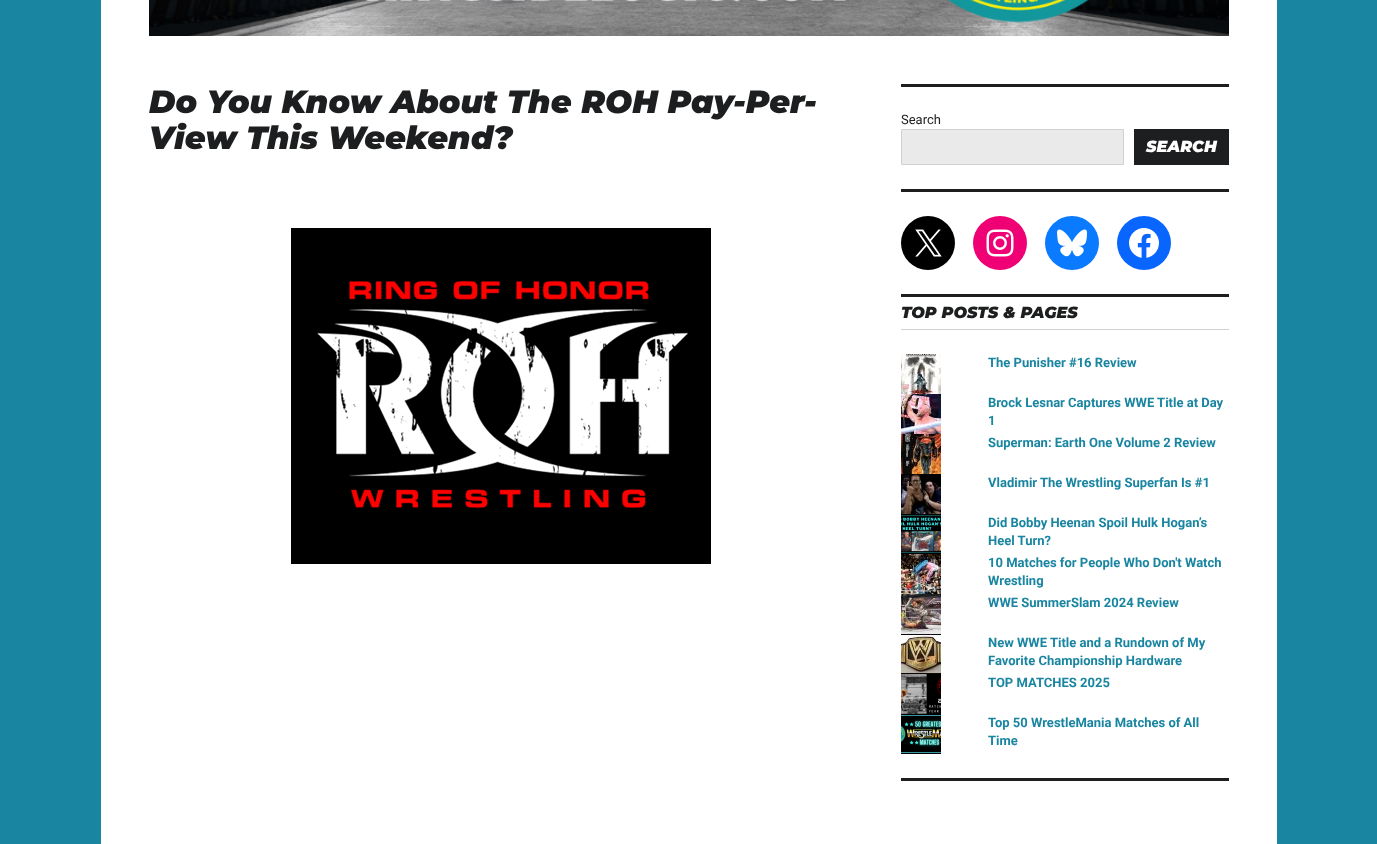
async function draw(canvas) {
  canvas.width = 1377
  canvas.height = 844
  const ctx = canvas.getContext('2d')
  ctx.miterLimit = 4
  ctx.fontKerning = 'normal'
  async function loadImage(src) {
    const img = new Image()
    img.src = src
    await img.decode()
    return img
  }

  ctx.fillStyle = '#1985a1'
  ctx.fillRect(0, 0, 1377, 844)
  ctx.fillStyle = '#fff'
  ctx.fillRect(101, 0, 1176, 844)
  ctx.drawImage(await loadImage('image0.png'), 149, 0, 1080, 36)
  ctx.font = 'italic 100 32px Montserrat'
  ctx.fillStyle = '#1d1e1f'
  ctx.fillText('Do You Know About The ROH Pay-Per-', 149, 113)
  ctx.fillText('View This Weekend?', 149, 149)
  ctx.drawImage(await loadImage('image1.png'), 291, 228, 420, 336)
  ctx.fillRect(901, 84, 328, 3)
  ctx.font = '13px Roboto'
  ctx.fillText('Search', 901, 124)
  ctx.fillStyle = '#eaeaea'
  ctx.beginPath()
  ctx.rect(901.5, 129.5, 222, 35)
  ctx.fill()
  ctx.strokeStyle = '#d1d1d1'
  ctx.stroke()
  ctx.fillStyle = '#1d1e1f'
  ctx.fillRect(1134, 129, 95, 36)
  ctx.font = 'italic 100 16px Montserrat'
  ctx.fillStyle = '#fff'
  ctx.fillText('SEARCH', 1146, 152)
  ctx.fillStyle = '#1d1e1f'
  ctx.fillRect(901, 189, 328, 3)
  ctx.fillStyle = '#000'
  ctx.beginPath()
  ctx.arc(928, 243, 27, 0, 2 * Math.PI)
  ctx.fill()
  ctx.drawImage(await loadImage('image2.png'), 915, 229, 27, 28)
  ctx.fillStyle = '#f00075'
  ctx.beginPath()
  ctx.arc(1000, 243, 27, 0, 2 * Math.PI)
  ctx.fill()
  ctx.drawImage(await loadImage('image3.png'), 986, 229, 28, 28)
  ctx.fillStyle = '#0a7aff'
  ctx.beginPath()
  ctx.arc(1072, 243, 27, 0, 2 * Math.PI)
  ctx.fill()
  ctx.drawImage(await loadImage('image4.png'), 1057, 229, 30, 28)
  ctx.fillStyle = '#0866ff'
  ctx.beginPath()
  ctx.arc(1144, 243, 27, 0, 2 * Math.PI)
  ctx.fill()
  ctx.drawImage(await loadImage('image5.png'), 1129, 228, 30, 30)
  ctx.fillStyle = '#1d1e1f'
  ctx.fillRect(901, 294, 328, 3)
  ctx.fillStyle = '#d1d1d1'
  ctx.fillRect(901, 329, 328, 1)
  ctx.fillStyle = '#1d1e1f'
  ctx.fillText('TOP POSTS & PAGES', 901, 318)
  ctx.drawImage(await loadImage('image6.png'), 901, 354, 40, 40)
  ctx.font = 'bold 13px Roboto'
  ctx.fillStyle = '#1985a1'
  ctx.fillText('The Punisher #16 Review', 988, 367)
  ctx.drawImage(await loadImage('image7.png'), 901, 394, 40, 40)
  ctx.fillText('Brock Lesnar Captures WWE Title at Day', 988, 407)
  ctx.fillText('1', 988, 425)
  ctx.drawImage(await loadImage('image8.png'), 901, 434, 40, 40)
  ctx.fillText('Superman: Earth One Volume 2 Review', 988, 447)
  ctx.drawImage(await loadImage('image9.png'), 901, 474, 40, 40)
  ctx.fillText('Vladimir The Wrestling Superfan Is #1', 988, 487)
  ctx.drawImage(await loadImage('image10.png'), 901, 514, 40, 40)
  ctx.fillText('Did Bobby Heenan Spoil Hulk Hogan’s', 988, 527)
  ctx.fillText('Heel Turn?', 988, 545)
  ctx.drawImage(await loadImage('image11.png'), 901, 554, 40, 40)
  ctx.fillText('10 Matches for People Who Don\'t Watch', 988, 567)
  ctx.fillText('Wrestling', 988, 585)
  ctx.drawImage(await loadImage('image12.png'), 901, 594, 40, 40)
  ctx.fillText('WWE SummerSlam 2024 Review', 988, 607)
  ctx.drawImage(await loadImage('image13.png'), 901, 634, 40, 40)
  ctx.fillText('New WWE Title and a Rundown of My', 988, 647)
  ctx.fillText('Favorite Championship Hardware', 988, 665)
  ctx.drawImage(await loadImage('image14.png'), 901, 674, 40, 40)
  ctx.fillText('TOP MATCHES 2025', 988, 687)
  ctx.drawImage(await loadImage('image15.png'), 901, 714, 40, 40)
  ctx.fillText('Top 50 WrestleMania Matches of All', 988, 727)
  ctx.fillText('Time', 988, 745)
  ctx.fillStyle = '#1d1e1f'
  ctx.fillRect(901, 778, 328, 3)
}

draw(document.querySelector('canvas'))
